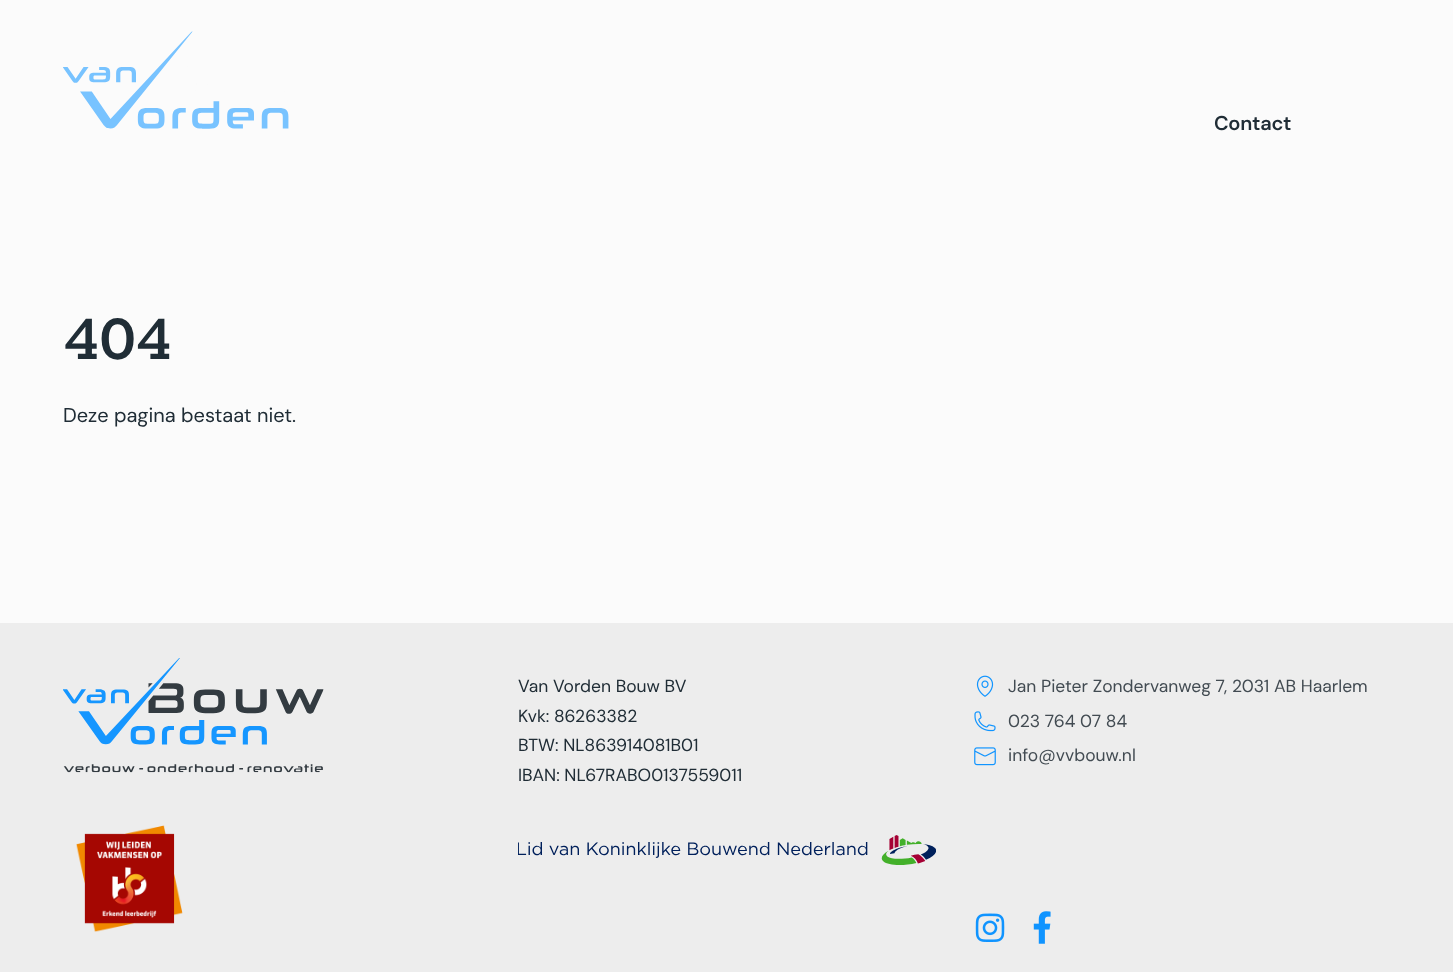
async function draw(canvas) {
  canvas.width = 1453
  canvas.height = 972
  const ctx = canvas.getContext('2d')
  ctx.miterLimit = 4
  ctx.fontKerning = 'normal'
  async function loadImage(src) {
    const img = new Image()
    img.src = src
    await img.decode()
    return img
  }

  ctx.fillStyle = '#fbfbfb'
  ctx.fillRect(0, 0, 1453, 972)
  ctx.drawImage(await loadImage('image0.png'), 63, 31, 226, 98)
  ctx.letterSpacing = '-0.25px'
  ctx.font = '600 20px DM Sans'
  ctx.fillStyle = '#202d36'
  ctx.fillText('Contact', 1214, 130)
  ctx.letterSpacing = '-1px'
  ctx.font = '500 69px Rokkitt'
  ctx.fillText('404', 63, 359)
  ctx.letterSpacing = '0px'
  ctx.font = '20px DM Sans'
  ctx.fillText('Deze pagina bestaat niet.', 63, 422)
  ctx.fillStyle = '#ededed'
  ctx.fillRect(0, 623, 1453, 349)
  ctx.drawImage(await loadImage('image1.png'), 63, 658, 261, 115)
  ctx.drawImage(await loadImage('image2.png'), 76, 825, 107, 107)
  ctx.font = '17.5px DM Sans'
  ctx.fillStyle = '#202d36'
  ctx.fillText('Van Vorden Bouw BV', 518, 692)
  ctx.fillText('Kvk: 86263382', 518, 722)
  ctx.fillText('BTW: NL863914081B01', 518, 751)
  ctx.fillText('IBAN: NL67RABO0137559011', 518, 781)
  ctx.drawImage(await loadImage('image3.png'), 518, 835, 418, 30)
  ctx.drawImage(await loadImage('image4.png'), 976, 675, 18, 22)
  ctx.fillStyle = '#424b52'
  ctx.fillText('Jan Pieter Zondervanweg 7, 2031 AB Haarlem', 1008, 692)
  ctx.drawImage(await loadImage('image5.png'), 974, 711, 22, 21)
  ctx.fillText('023 764 07 84', 1008, 727)
  ctx.drawImage(await loadImage('image6.png'), 974, 747, 22, 19)
  ctx.fillText('info@vvbouw.nl', 1008, 761)
  ctx.drawImage(await loadImage('image7.png'), 975, 913, 30, 29)
  ctx.drawImage(await loadImage('image8.png'), 1033, 911, 18, 33)
}

draw(document.querySelector('canvas'))
